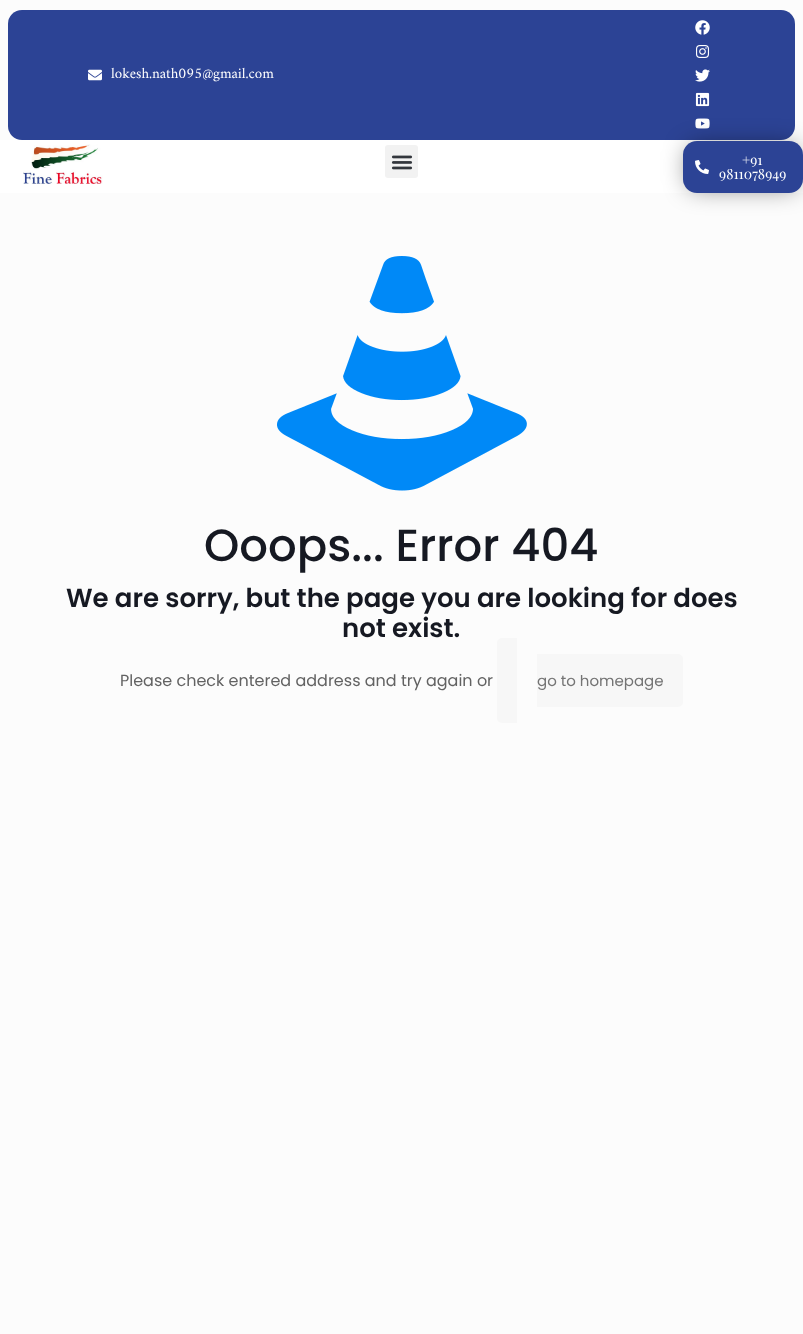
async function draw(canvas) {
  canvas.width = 803
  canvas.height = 1334
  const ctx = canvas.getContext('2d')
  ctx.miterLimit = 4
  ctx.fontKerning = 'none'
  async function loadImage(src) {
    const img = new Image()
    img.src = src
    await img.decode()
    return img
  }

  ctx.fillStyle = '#fcfcfc'
  ctx.fillRect(0, 0, 803, 1334)
  ctx.fillStyle = '#2c4395'
  ctx.beginPath()
  ctx.roundRect(8, 10, 787, 130, 14)
  ctx.fill()
  ctx.drawImage(await loadImage('image0.png'), 88, 69, 14, 12)
  ctx.font = '15px Amiri'
  ctx.fillStyle = '#fff'
  ctx.fillText('lokesh.nath095@gmail.com', 111, 78)
  ctx.drawImage(await loadImage('image1.png'), 695, 20, 15, 15)
  ctx.drawImage(await loadImage('image2.png'), 696, 45, 14, 13)
  ctx.drawImage(await loadImage('image3.png'), 695, 69, 15, 13)
  ctx.drawImage(await loadImage('image4.png'), 695, 92, 15, 15)
  ctx.drawImage(await loadImage('image5.png'), 695, 118, 15, 11)
  ctx.fillRect(0, 140, 803, 53)
  ctx.drawImage(await loadImage('image6.png'), 23, 144, 80, 40)
  ctx.fillStyle = '#f2f2f2'
  ctx.beginPath()
  ctx.roundRect(385, 145, 33, 33, 3)
  ctx.fill()
  ctx.drawImage(await loadImage('image7.png'), 391, 155, 22, 15)
  ctx.fillStyle = '#00000080'
  ctx.filter = 'blur(12.5px)'
  ctx.beginPath()
  ctx.roundRect(688, 146, 110, 42, 9)
  ctx.fill()
  ctx.filter = 'none'
  ctx.fillStyle = '#2c4395'
  ctx.beginPath()
  ctx.roundRect(683, 141, 120, 52, 14)
  ctx.fill()
  ctx.drawImage(await loadImage('image8.png'), 695, 160, 14, 14)
  ctx.font = '14px Playfair Display'
  ctx.fillStyle = '#fff'
  ctx.fillText('+91', 742, 165)
  ctx.fillText('9811078949', 719, 179)
  ctx.drawImage(await loadImage('image9.png'), 277, 256, 250, 235)
  ctx.font = '500 45px Poppins'
  ctx.fillStyle = '#161922'
  ctx.fillText('Ooops... Error 404', 204, 561)
  ctx.font = '600 26px Poppins'
  ctx.fillText('We are sorry, but the page you are looking for does', 66, 607)
  ctx.fillText('not exist.', 342, 637)
  ctx.font = '16px Poppins'
  ctx.fillStyle = '#626262'
  ctx.fillText('Please check entered address and try again or', 120, 686)
  ctx.fillStyle = '#f7f7f7'
  ctx.beginPath()
  ctx.roundRect(537, 654, 146, 53, [0, 5, 5, 0])
  ctx.fill()
  ctx.font = '15px Poppins'
  ctx.fillStyle = '#747474'
  ctx.fillText('go to homepage', 537, 686)
  ctx.fillStyle = '#f7f7f7'
  ctx.beginPath()
  ctx.roundRect(497, 638, 20, 85, [5, 0, 0, 5])
  ctx.fill()
}

draw(document.querySelector('canvas'))
